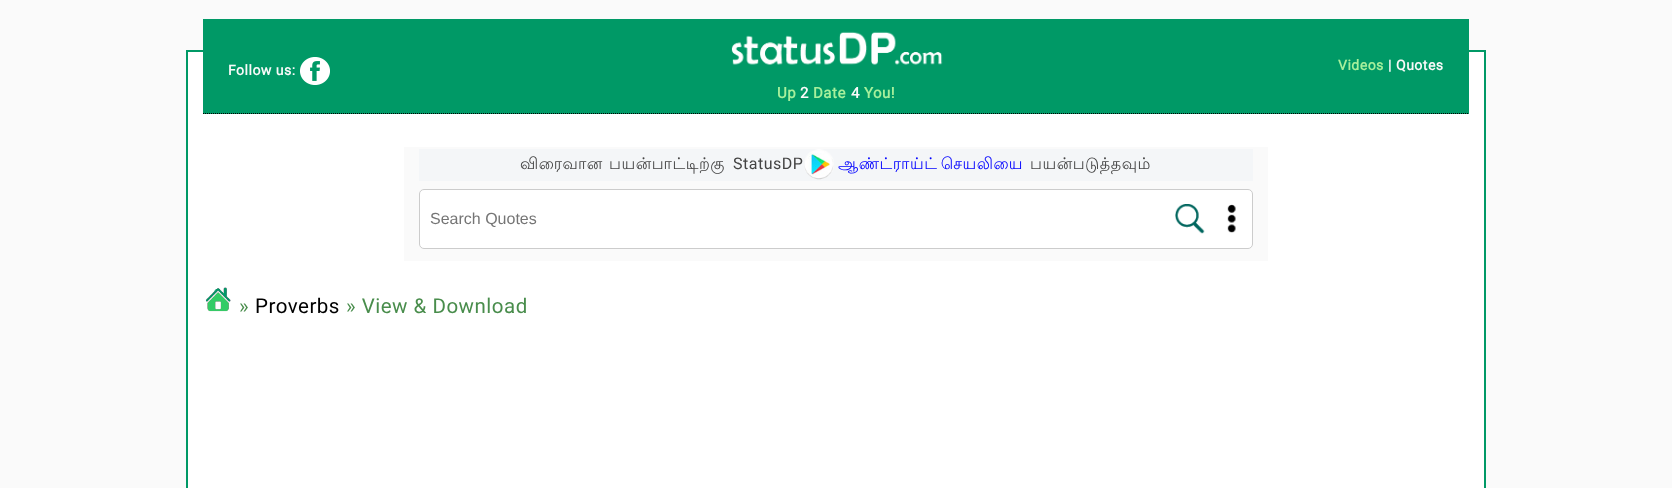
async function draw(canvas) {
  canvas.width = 1672
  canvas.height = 488
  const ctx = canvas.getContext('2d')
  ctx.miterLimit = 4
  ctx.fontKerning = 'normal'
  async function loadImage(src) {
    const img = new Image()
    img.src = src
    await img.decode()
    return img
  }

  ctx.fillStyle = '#fafafa'
  ctx.fillRect(0, 0, 1672, 488)
  ctx.fillStyle = '#fff'
  ctx.beginPath()
  ctx.rect(187, 51, 1298, 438)
  ctx.fill()
  ctx.strokeStyle = '#096'
  ctx.lineWidth = 2
  ctx.stroke()
  ctx.fillStyle = '#096'
  ctx.fillRect(203, 19, 1266, 95)
  ctx.beginPath()
  ctx.moveTo(203, 113.5)
  ctx.lineTo(1469, 113.5)
  ctx.strokeStyle = '#000'
  ctx.lineWidth = 1
  ctx.setLineDash([1, 1])
  ctx.stroke()
  ctx.letterSpacing = '0.5px'
  ctx.font = 'bold 14px Roboto'
  ctx.fillStyle = '#fafafa'
  ctx.fillText('Follow us:', 228, 75)
  ctx.drawImage(await loadImage('image0.png'), 300, 57, 30, 28)
  ctx.drawImage(await loadImage('image1.png'), 731, 31, 212, 34)
  ctx.fillStyle = '#a7f09c'
  ctx.fillText('Videos', 1338, 70)
  ctx.fillStyle = '#fafafa'
  ctx.fillText('|', 1388, 70)
  ctx.fillText('Quotes', 1396, 70)
  ctx.font = 'bold 15px Roboto'
  ctx.fillStyle = '#a7f09c'
  ctx.fillText('Up', 777, 98)
  ctx.fillStyle = '#fafafa'
  ctx.fillText('2', 800, 98)
  ctx.fillStyle = '#a7f09c'
  ctx.fillText('Date', 813, 98)
  ctx.fillStyle = '#fafafa'
  ctx.fillText('4', 851, 98)
  ctx.fillStyle = '#a7f09c'
  ctx.fillText('You!', 864, 98)
  ctx.fillStyle = '#d7d7d7'
  ctx.filter = 'blur(0.5px)'
  ctx.beginPath()
  ctx.rect(404, 147, 864, 114)
  ctx.fill()
  ctx.filter = 'none'
  ctx.fillStyle = '#fafafa'
  ctx.fillRect(404, 147, 864, 114)
  ctx.fillStyle = '#f4f6f8'
  ctx.fillRect(419, 149, 834, 32)
  ctx.font = '16px Lohit Tamil'
  ctx.fillStyle = '#444'
  ctx.fillText('விரைவான', 520, 169)
  ctx.fillText('பயன்பாட்டிற்கு', 609, 169)
  ctx.font = '16px Roboto'
  ctx.fillText('StatusDP', 733, 169)
  ctx.drawImage(await loadImage('image2.png'), 804, 149, 30, 31)
  ctx.wordSpacing = '-2px'
  ctx.font = '16px Lohit Tamil'
  ctx.fillStyle = '#00f'
  ctx.fillText('ஆண்ட்ராய்ட் செயலியை', 838, 169)
  ctx.wordSpacing = '0px'
  ctx.fillStyle = '#444'
  ctx.fillText('பயன்படுத்தவும்', 1030, 169)
  ctx.fillStyle = '#fff'
  ctx.beginPath()
  ctx.roundRect(419.5, 189.5, 833, 59, 4.5)
  ctx.fill()
  ctx.strokeStyle = '#ccc'
  ctx.setLineDash([])
  ctx.stroke()
  ctx.letterSpacing = '0px'
  ctx.font = '16px Liberation Sans'
  ctx.fillStyle = '#757575'
  ctx.fillText('Search Quotes', 430, 224)
  ctx.drawImage(await loadImage('image3.png'), 1175, 204, 30, 30)
  ctx.drawImage(await loadImage('image4.png'), 1227, 204, 9, 29)
  ctx.drawImage(await loadImage('image5.png'), 205, 287, 26, 25)
  ctx.letterSpacing = '0.5px'
  ctx.font = '20.5px Roboto'
  ctx.fillStyle = '#498d4c'
  ctx.fillText('»', 239, 313)
  ctx.fillStyle = '#000'
  ctx.fillText('Proverbs', 255, 313)
  ctx.fillStyle = '#498d4c'
  ctx.fillText('» View & Download', 346, 313)
}

draw(document.querySelector('canvas'))
